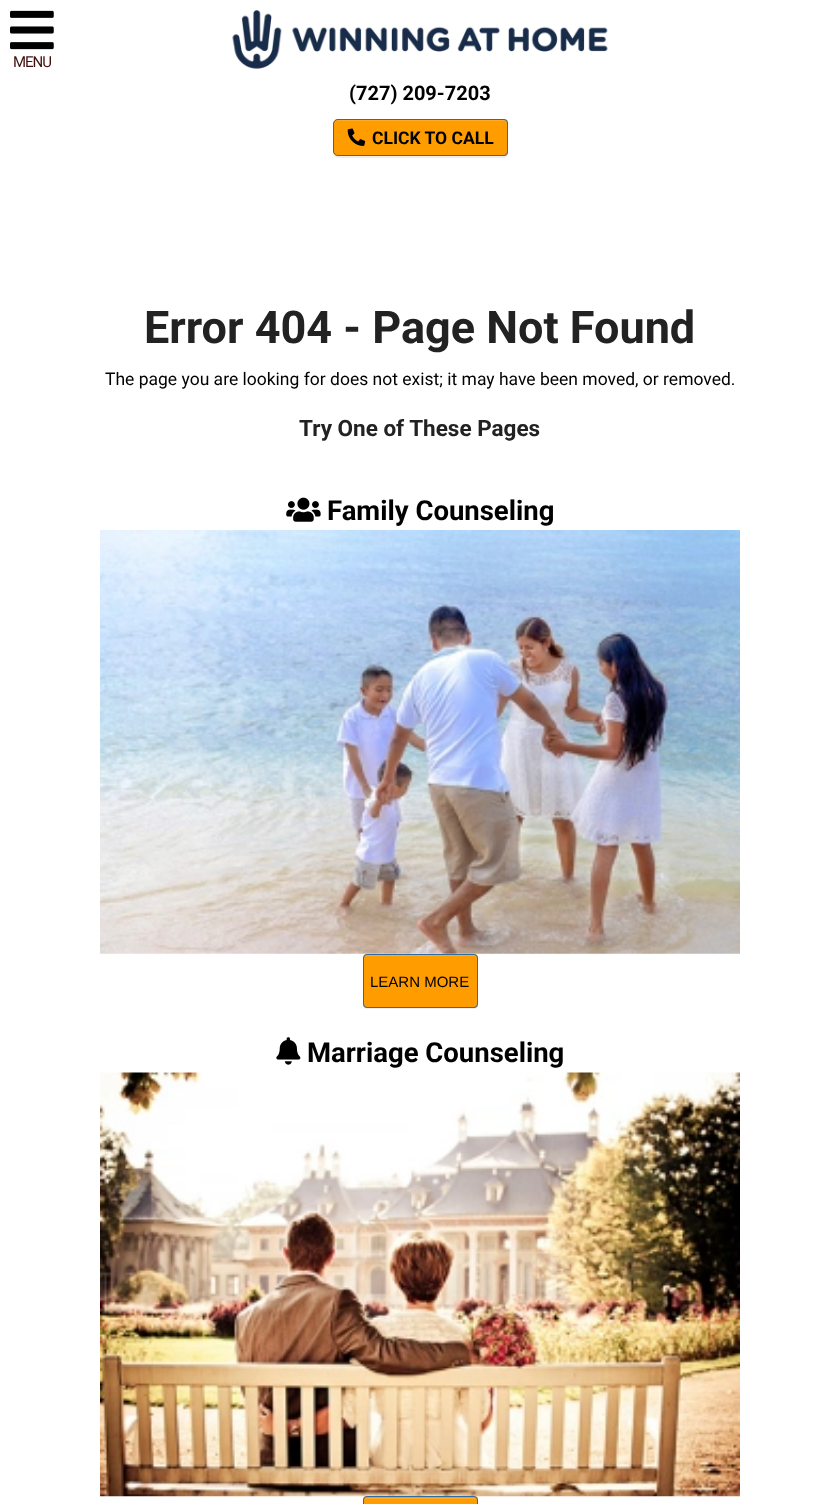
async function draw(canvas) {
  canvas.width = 840
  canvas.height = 1504
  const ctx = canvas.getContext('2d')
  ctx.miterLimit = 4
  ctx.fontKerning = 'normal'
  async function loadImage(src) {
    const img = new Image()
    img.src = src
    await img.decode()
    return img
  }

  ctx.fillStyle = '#fff'
  ctx.fillRect(0, 0, 840, 1504)
  ctx.drawImage(await loadImage('image0.png'), 10, 10, 44, 40)
  ctx.letterSpacing = '-1px'
  ctx.font = '15px Roboto'
  ctx.fillStyle = '#420e0e'
  ctx.fillText('MENU', 13, 67)
  ctx.drawImage(await loadImage('image1.png'), 232, 10, 376, 59)
  ctx.letterSpacing = '0px'
  ctx.font = 'bold 20px Roboto'
  ctx.fillStyle = '#000'
  ctx.fillText('(727) 209-7203', 349, 100)
  ctx.fillStyle = '#00000012'
  ctx.filter = 'blur(0.5px)'
  ctx.beginPath()
  ctx.roundRect(333, 120, 175, 38, 5)
  ctx.fill()
  ctx.filter = 'none'
  ctx.fillStyle = '#ff9c00'
  ctx.beginPath()
  ctx.roundRect(333, 119, 175, 37, [5, 4, 4, 5])
  ctx.fill()
  ctx.fillStyle = '#ffab26'
  ctx.beginPath()
  ctx.moveTo(338, 121)
  ctx.lineTo(504, 121)
  ctx.bezierCurveTo(505, 121, 506, 122, 506, 124)
  ctx.lineTo(506, 122)
  ctx.bezierCurveTo(506, 121, 505, 120, 504, 120)
  ctx.lineTo(338, 120)
  ctx.bezierCurveTo(336, 120, 334, 122, 334, 124)
  ctx.lineTo(334, 125)
  ctx.bezierCurveTo(334, 123, 335, 121, 338, 121)
  ctx.closePath()
  ctx.fill()
  ctx.beginPath()
  ctx.roundRect(333.5, 119.5, 174, 36, [4.5, 3.5, 3.5, 4.5])
  ctx.strokeStyle = '#2d6ca2'
  ctx.stroke()
  ctx.drawImage(await loadImage('image2.png'), 347, 128, 19, 18)
  ctx.font = 'bold 17.5px Roboto'
  ctx.fillStyle = '#000'
  ctx.fillText('CLICK TO CALL', 372, 144)
  ctx.font = 'bold 45px Roboto'
  ctx.fillStyle = '#222'
  ctx.fillText('Error 404 - Page Not Found', 144, 343)
  ctx.font = '17.5px Roboto'
  ctx.fillStyle = '#000'
  ctx.fillText('The page you are looking for does not exist; it may have been moved, or removed.', 105, 385)
  ctx.font = 'bold 22.5px Roboto'
  ctx.fillStyle = '#222'
  ctx.fillText('Try One of These Pages', 299, 436)
  ctx.drawImage(await loadImage('image3.png'), 286, 497, 35, 25)
  ctx.font = 'bold 27.5px Roboto'
  ctx.fillStyle = '#000'
  ctx.fillText('Family Counseling', 327, 520)
  ctx.drawImage(await loadImage('image4.png'), 100, 530, 640, 424)
  ctx.fillStyle = '#00000012'
  ctx.filter = 'blur(0.5px)'
  ctx.beginPath()
  ctx.roundRect(363, 955, 115, 54, 4)
  ctx.fill()
  ctx.filter = 'none'
  ctx.fillStyle = '#ff9c00'
  ctx.beginPath()
  ctx.roundRect(363, 954, 115, 54, 4)
  ctx.fill()
  ctx.fillStyle = '#ffab26'
  ctx.beginPath()
  ctx.moveTo(366, 956)
  ctx.lineTo(474, 956)
  ctx.bezierCurveTo(475, 956, 476, 957, 476, 959)
  ctx.lineTo(476, 958)
  ctx.bezierCurveTo(476, 956, 475, 955, 474, 955)
  ctx.lineTo(366, 955)
  ctx.bezierCurveTo(365, 955, 364, 956, 364, 958)
  ctx.lineTo(364, 959)
  ctx.bezierCurveTo(364, 957, 365, 956, 366, 956)
  ctx.closePath()
  ctx.fill()
  ctx.beginPath()
  ctx.roundRect(363.5, 954.5, 114, 53, 3.5)
  ctx.stroke()
  ctx.font = '15px Liberation Sans'
  ctx.fillStyle = '#000'
  ctx.fillText('LEARN MORE', 370, 987)
  ctx.drawImage(await loadImage('image5.png'), 276, 1037, 25, 28)
  ctx.font = 'bold 27.5px Roboto'
  ctx.fillText('Marriage Counseling', 307, 1062)
  ctx.drawImage(await loadImage('image6.png'), 100, 1072, 640, 425)
  ctx.fillStyle = '#ff9c00'
  ctx.beginPath()
  ctx.roundRect(363, 1496, 115, 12, 4)
  ctx.fill()
  ctx.fillStyle = '#ffab26'
  ctx.beginPath()
  ctx.moveTo(366, 1499)
  ctx.lineTo(474, 1499)
  ctx.bezierCurveTo(475, 1499, 476, 1500, 476, 1501)
  ctx.lineTo(476, 1500)
  ctx.bezierCurveTo(476, 1499, 475, 1498, 474, 1498)
  ctx.lineTo(366, 1498)
  ctx.bezierCurveTo(365, 1498, 364, 1499, 364, 1500)
  ctx.lineTo(364, 1501)
  ctx.bezierCurveTo(364, 1500, 365, 1499, 366, 1499)
  ctx.closePath()
  ctx.fill()
  ctx.beginPath()
  ctx.roundRect(363.5, 1496.5, 114, 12, 3.5)
  ctx.stroke()
}

draw(document.querySelector('canvas'))
